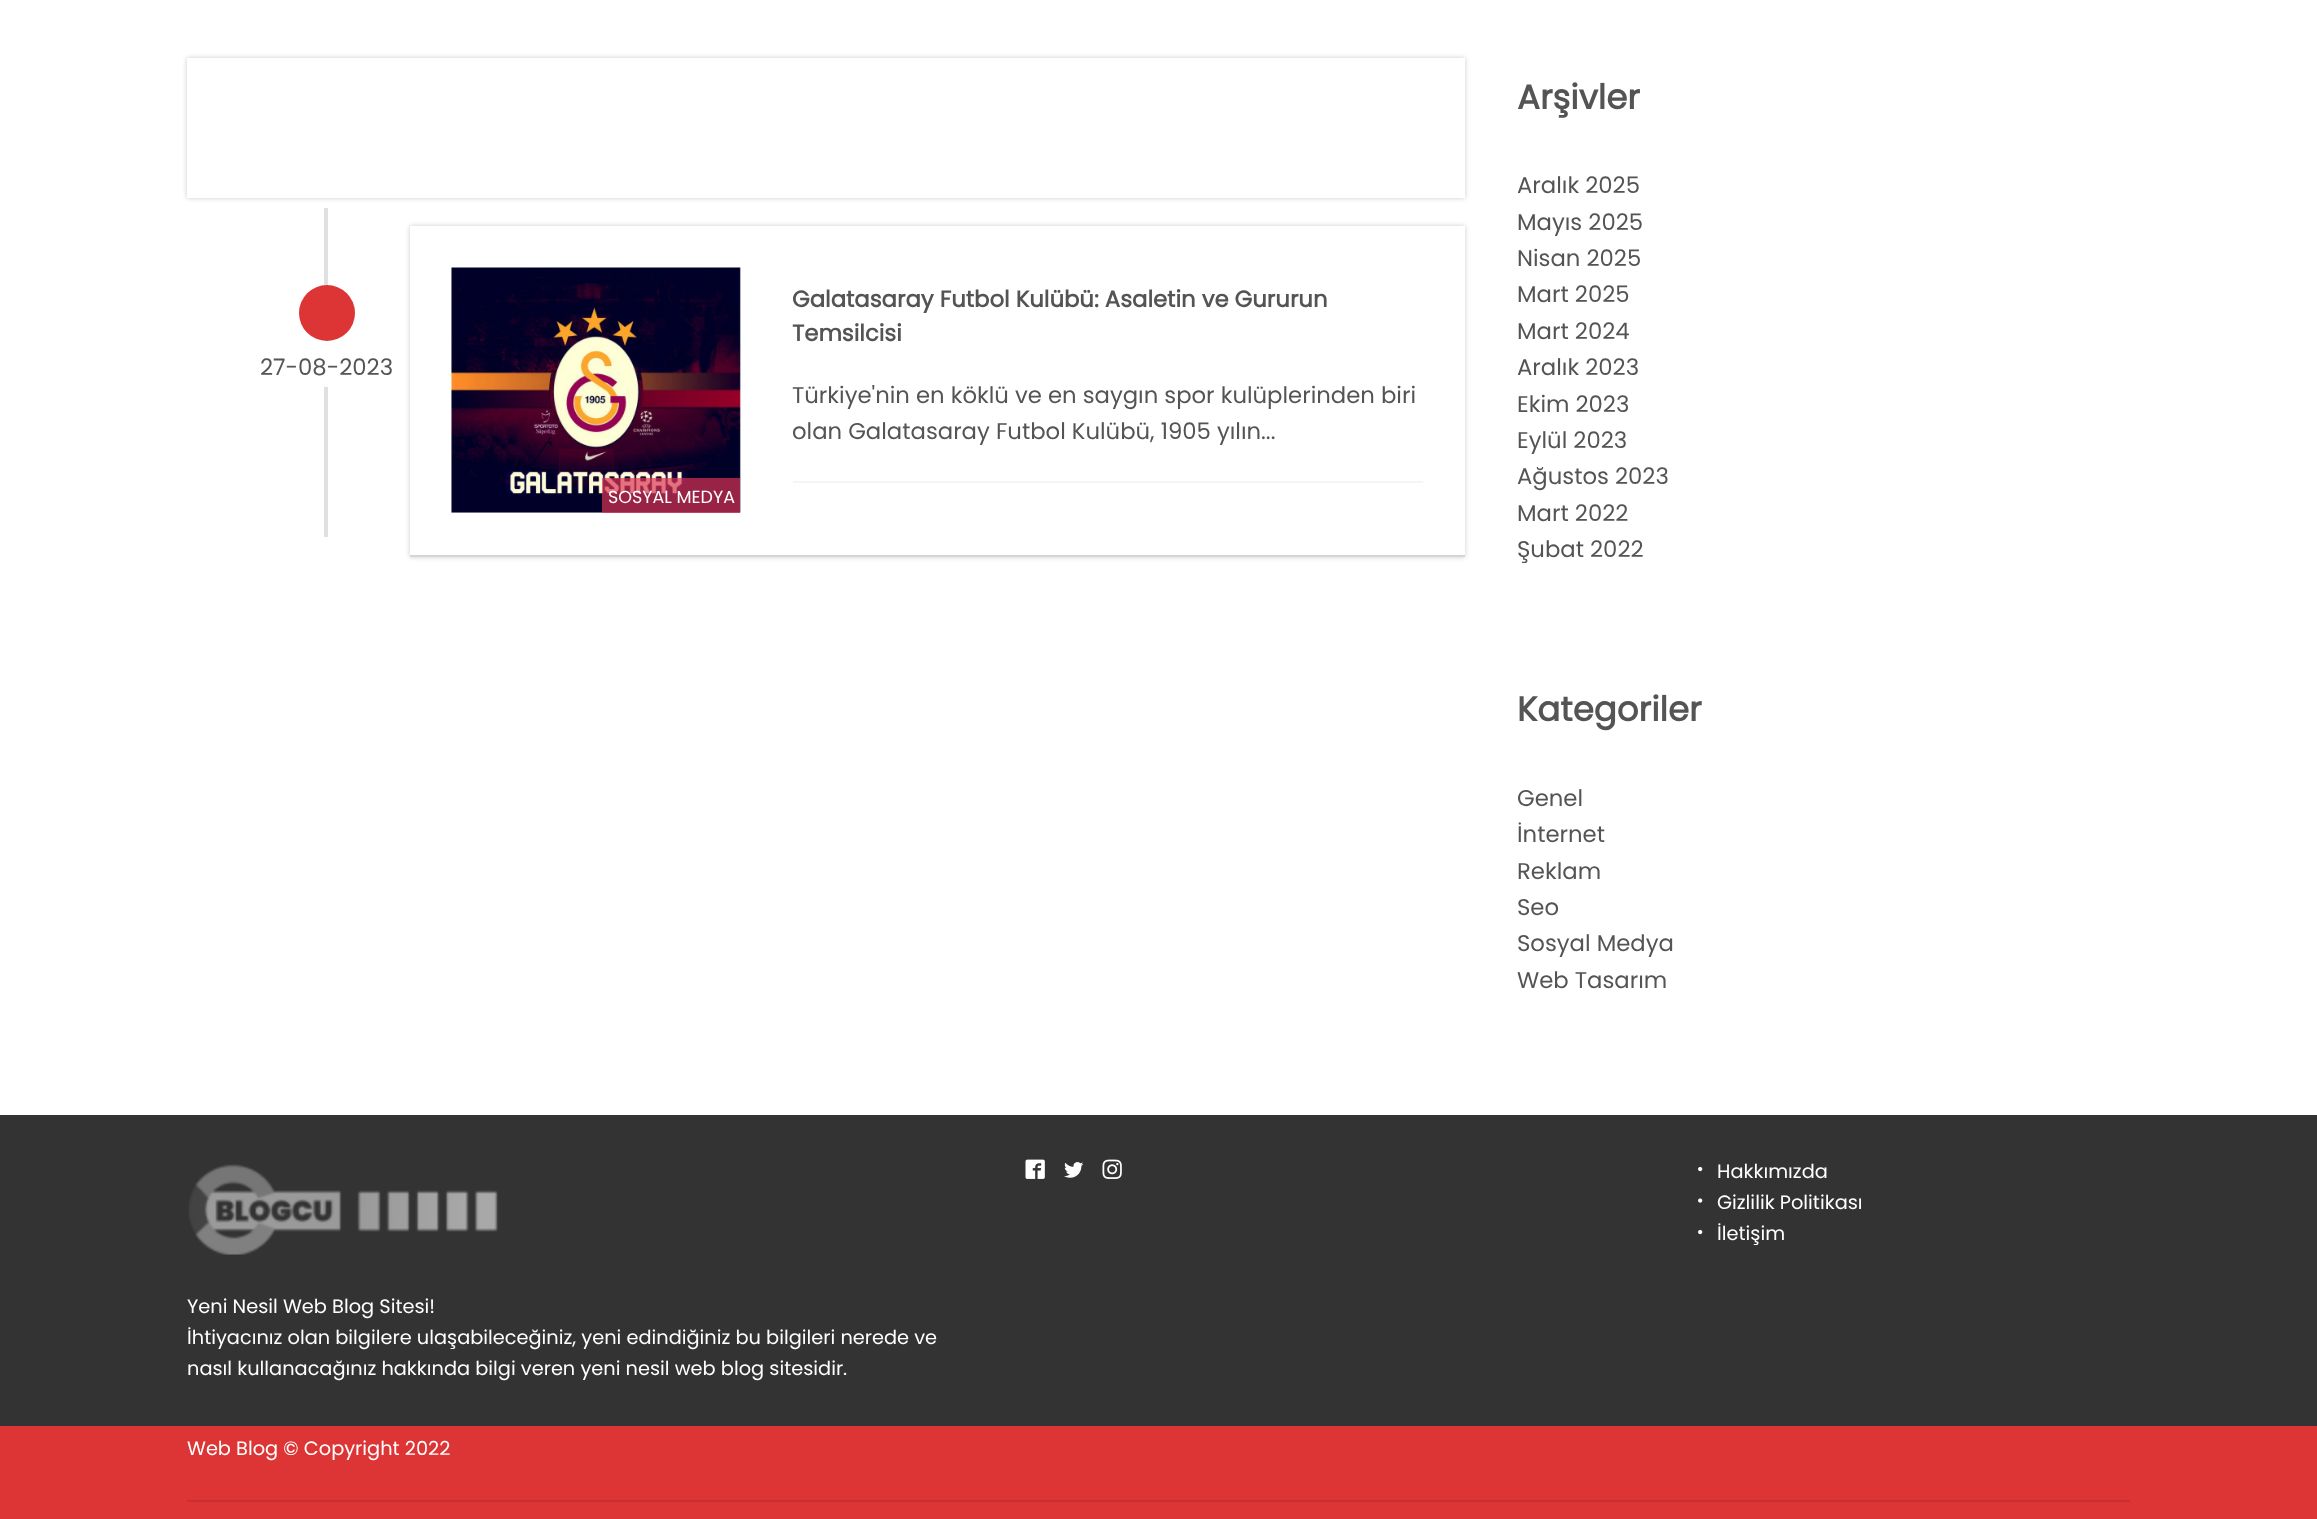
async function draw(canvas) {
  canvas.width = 2317
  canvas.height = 1519
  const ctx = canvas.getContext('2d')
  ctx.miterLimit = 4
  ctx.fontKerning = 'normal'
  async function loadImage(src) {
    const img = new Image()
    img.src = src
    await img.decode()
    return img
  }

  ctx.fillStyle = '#fff'
  ctx.fillRect(0, 0, 2317, 1519)
  ctx.save()
  ctx.beginPath()
  ctx.moveTo(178, 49)
  ctx.lineTo(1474, 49)
  ctx.lineTo(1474, 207)
  ctx.lineTo(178, 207)
  ctx.closePath()
  ctx.moveTo(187, 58)
  ctx.lineTo(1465, 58)
  ctx.lineTo(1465, 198)
  ctx.lineTo(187, 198)
  ctx.closePath()
  ctx.clip('evenodd')
  ctx.fillStyle = '#cacaca'
  ctx.filter = 'blur(2.5px)'
  ctx.beginPath()
  ctx.rect(187, 58, 1278, 140)
  ctx.fill()
  ctx.filter = 'none'
  ctx.restore()
  ctx.save()
  ctx.beginPath()
  ctx.moveTo(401, 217)
  ctx.lineTo(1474, 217)
  ctx.lineTo(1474, 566)
  ctx.lineTo(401, 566)
  ctx.closePath()
  ctx.moveTo(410, 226)
  ctx.lineTo(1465, 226)
  ctx.lineTo(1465, 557)
  ctx.lineTo(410, 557)
  ctx.closePath()
  ctx.clip('evenodd')
  ctx.fillStyle = '#cacaca'
  ctx.filter = 'blur(2.5px)'
  ctx.beginPath()
  ctx.rect(410, 226, 1055, 331)
  ctx.fill()
  ctx.filter = 'none'
  ctx.restore()
  ctx.fillStyle = '#d5d5d5'
  ctx.fillRect(410, 555, 1055, 2)
  ctx.fillStyle = '#e0e0e0'
  ctx.fillRect(324, 208, 4, 329)
  ctx.fillStyle = '#fff'
  ctx.fillRect(324, 285, 4, 102)
  ctx.fillStyle = '#dd3535'
  ctx.beginPath()
  ctx.arc(327, 313, 28, 0, 2 * Math.PI)
  ctx.fill()
  ctx.font = '22.75px Poppins'
  ctx.fillStyle = '#545454'
  ctx.fillText('27-08-2023', 260, 375)
  ctx.font = 'bold 22.75px Poppins'
  ctx.fillText('Galatasaray Futbol Kulübü: Asaletin ve Gururun', 792, 307)
  ctx.fillText('Temsilcisi', 792, 341)
  ctx.fillStyle = '#f5f5f5'
  ctx.fillRect(793, 481, 630, 2)
  ctx.font = '22.75px Poppins'
  ctx.fillStyle = '#545454'
  ctx.fillText('Türkiye\'nin en köklü ve en saygın spor kulüplerinden biri', 792, 403)
  ctx.fillText('olan Galatasaray Futbol Kulübü, 1905 yılın...', 792, 439)
  ctx.drawImage(await loadImage('image0.png'), 451, 267, 290, 246)
  ctx.fillStyle = '#dc3254b0'
  ctx.fillRect(602, 478, 138, 35)
  ctx.font = '17.5px Poppins'
  ctx.fillStyle = '#fff'
  ctx.fillText('SOSYAL MEDYA', 608, 503)
  ctx.font = 'bold 34px Poppins'
  ctx.fillStyle = '#545454'
  ctx.fillText('Arşivler', 1517, 109)
  ctx.font = '22.75px Poppins'
  ctx.fillText('Aralık 2025', 1517, 193)
  ctx.fillText('Mayıs 2025', 1517, 230)
  ctx.fillText('Nisan 2025', 1517, 266)
  ctx.fillText('Mart 2025', 1517, 302)
  ctx.fillText('Mart 2024', 1517, 339)
  ctx.fillText('Aralık 2023', 1517, 375)
  ctx.fillText('Ekim 2023', 1517, 412)
  ctx.fillText('Eylül 2023', 1517, 448)
  ctx.fillText('Ağustos 2023', 1517, 484)
  ctx.fillText('Mart 2022', 1517, 521)
  ctx.fillText('Şubat 2022', 1517, 557)
  ctx.font = 'bold 34px Poppins'
  ctx.fillText('Kategoriler', 1517, 721)
  ctx.font = '22.75px Poppins'
  ctx.fillText('Genel', 1517, 806)
  ctx.fillText('İnternet', 1517, 842)
  ctx.fillText('Reklam', 1517, 879)
  ctx.fillText('Seo', 1517, 915)
  ctx.fillText('Sosyal Medya', 1517, 951)
  ctx.fillText('Web Tasarım', 1517, 988)
  ctx.fillStyle = '#343333'
  ctx.fillRect(0, 1115, 2317, 311)
  ctx.drawImage(await loadImage('image1.png'), 1025, 1159, 20, 20)
  ctx.drawImage(await loadImage('image2.png'), 1064, 1162, 20, 16)
  ctx.drawImage(await loadImage('image3.png'), 1102, 1159, 20, 20)
  ctx.drawImage(await loadImage('image4.png'), 1698, 1166, 5, 6)
  ctx.font = '19.35px Poppins'
  ctx.fillStyle = '#fff'
  ctx.fillText('Hakkımızda', 1717, 1178)
  ctx.drawImage(await loadImage('image5.png'), 1698, 1198, 5, 5)
  ctx.fillText('Gizlilik Politikası', 1717, 1209)
  ctx.drawImage(await loadImage('image4.png'), 1698, 1229, 5, 6)
  ctx.fillText('İletişim', 1717, 1240)
  ctx.drawImage(await loadImage('image6.png'), 188, 1164, 310, 91)
  ctx.fillText('Yeni Nesil Web Blog Sitesi!', 187, 1313)
  ctx.fillText('İhtiyacınız olan bilgilere ulaşabileceğiniz, yeni edindiğiniz bu bilgileri nerede ve', 187, 1344)
  ctx.fillText('nasıl kullanacağınız hakkında bilgi veren yeni nesil web blog sitesidir.', 187, 1375)
  ctx.fillStyle = '#dd3535'
  ctx.fillRect(0, 1426, 2317, 93)
  ctx.fillStyle = '#fff'
  ctx.fillText('Web Blog © Copyright 2022', 187, 1455)
  ctx.fillStyle = '#c73030'
  ctx.fillRect(187, 1500, 1943, 2)
}

draw(document.querySelector('canvas'))
